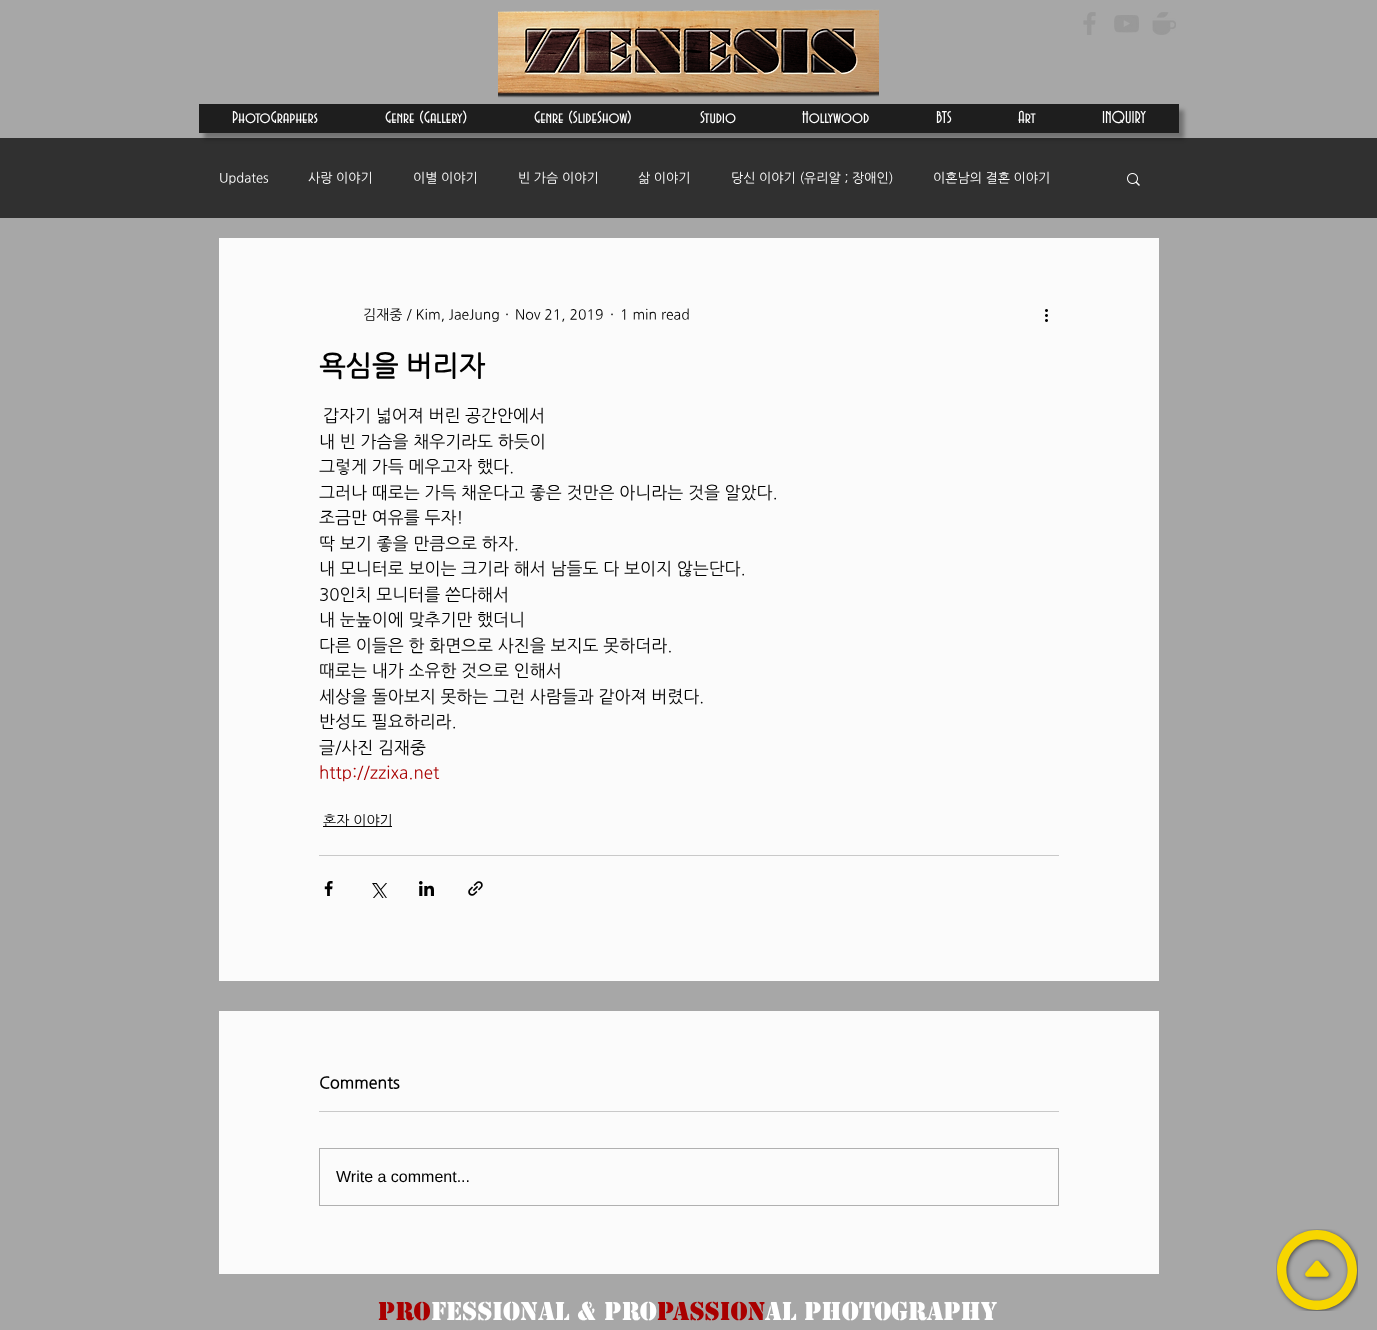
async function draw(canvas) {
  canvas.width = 1377
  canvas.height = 1330
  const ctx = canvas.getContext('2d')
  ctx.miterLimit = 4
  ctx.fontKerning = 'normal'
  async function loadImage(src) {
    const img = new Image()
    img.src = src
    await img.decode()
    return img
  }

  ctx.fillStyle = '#a7a7a7'
  ctx.fillRect(0, 0, 1377, 1330)
  ctx.drawImage(await loadImage('image0.png'), 498, 9, 381, 89)
  ctx.drawImage(await loadImage('image1.png'), 1083, 12, 13, 23)
  ctx.drawImage(await loadImage('image2.png'), 1114, 15, 25, 18)
  ctx.drawImage(await loadImage('image3.png'), 1152, 12, 24, 23)
  ctx.fillStyle = '#303030'
  ctx.fillRect(0, 138, 1377, 80)
  ctx.fillStyle = '#00000052'
  ctx.filter = 'blur(2px)'
  ctx.beginPath()
  ctx.rect(204, 110, 980, 29)
  ctx.fill()
  ctx.filter = 'none'
  ctx.fillStyle = '#1e1e1e'
  ctx.fillRect(199, 104, 980, 29)
  ctx.font = '18px "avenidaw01"'
  ctx.fillStyle = '#fff'
  ctx.fillText('PhotoGraphers', 232, 123)
  ctx.fillText('Genre (Gallery)', 385, 123)
  ctx.fillText('Genre (SlideShow)', 534, 123)
  ctx.fillText('Studio', 700, 123)
  ctx.fillText('Hollywood', 802, 123)
  ctx.fillText('BTS', 936, 123)
  ctx.fillText('Art', 1018, 123)
  ctx.fillText('INQUIRY', 1102, 123)
  ctx.font = '13px NanumGothic'
  ctx.fillText('Updates', 219, 182)
  ctx.fillText('사랑 이야기', 308, 182)
  ctx.fillText('이별 이야기', 413, 182)
  ctx.fillText('빈 가슴 이야기', 518, 182)
  ctx.fillText('삶 이야기', 638, 182)
  ctx.fillText('당신 이야기 (유리알 ; 장애인)', 731, 182)
  ctx.fillText('이혼남의 결혼 이야기', 933, 182)
  ctx.drawImage(await loadImage('image4.png'), 1127, 173, 13, 13)
  ctx.fillStyle = '#fbfbfb'
  ctx.fillRect(219, 238, 940, 743)
  ctx.font = '14px NanumGothic'
  ctx.fillStyle = '#000'
  ctx.fillText('김재중 / Kim, JaeJung', 363, 319)
  ctx.fillText('·', 505, 319)
  ctx.fillText('Nov 21, 2019', 515, 319)
  ctx.fillText('·', 610, 319)
  ctx.fillText('1 min read', 620, 319)
  ctx.drawImage(await loadImage('image5.png'), 1045, 309, 3, 13)
  ctx.font = 'bold 28px NanumGothic'
  ctx.fillText('욕심을 버리자', 319, 375)
  ctx.font = '17px NanumGothic'
  ctx.fillText('갑자기 넓어져 버린 공간안에서', 323, 421)
  ctx.fillText('내 빈 가슴을 채우기라도 하듯이', 319, 447)
  ctx.fillText('그렇게 가득 메우고자 했다.', 319, 472)
  ctx.fillText('그러나 때로는 가득 채운다고 좋은 것만은 아니라는 것을 알았다.', 319, 498)
  ctx.fillText('조금만 여유를 두자!', 319, 523)
  ctx.fillText('딱 보기 좋을 만큼으로 하자.', 319, 549)
  ctx.fillText('내 모니터로 보이는 크기라 해서 남들도 다 보이지 않는단다.', 319, 574)
  ctx.fillText('30인치 모니터를 쓴다해서', 319, 600)
  ctx.fillText('내 눈높이에 맞추기만 했더니', 319, 625)
  ctx.fillText('다른 이들은 한 화면으로 사진을 보지도 못하더라.', 319, 651)
  ctx.fillText('때로는 내가 소유한 것으로 인해서', 319, 676)
  ctx.fillText('세상을 돌아보지 못하는 그런 사람들과 같아져 버렸다.', 319, 702)
  ctx.fillText('반성도 필요하리라.', 319, 727)
  ctx.fillText('글/사진 김재중', 319, 753)
  ctx.fillStyle = '#a90000'
  ctx.fillText('http://zzixa.net', 319, 778)
  ctx.fillStyle = '#000'
  ctx.fillRect(323, 826, 69, 1)
  ctx.font = '14px NanumGothic'
  ctx.fillText('혼자 이야기', 323, 825)
  ctx.fillStyle = '#c9c9c9'
  ctx.fillRect(319, 855, 740, 1)
  ctx.drawImage(await loadImage('image6.png'), 324, 881, 9, 15)
  ctx.drawImage(await loadImage('image7.png'), 372, 883, 15, 15)
  ctx.drawImage(await loadImage('image8.png'), 419, 881, 15, 15)
  ctx.drawImage(await loadImage('image9.png'), 468, 881, 15, 15)
  ctx.fillStyle = '#fbfbfb'
  ctx.fillRect(219, 1011, 940, 263)
  ctx.font = 'bold 16px NanumGothic'
  ctx.fillStyle = '#000'
  ctx.fillText('Comments', 319, 1088)
  ctx.fillStyle = '#c9c9c9'
  ctx.fillRect(319, 1111, 740, 1)
  ctx.strokeStyle = '#b0b0b0'
  ctx.strokeRect(319.5, 1148.5, 739, 57)
  ctx.font = '16px Liberation Sans'
  ctx.fillStyle = '#000'
  ctx.fillText('Write a comment...', 336, 1182)
  ctx.font = 'bold 24px "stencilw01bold"'
  ctx.fillStyle = '#a90000'
  ctx.fillText('PRO', 378, 1320)
  ctx.fillStyle = '#fff'
  ctx.fillText('FESSIONAL & PRO', 431, 1320)
  ctx.fillStyle = '#a90000'
  ctx.fillText('PASSION', 657, 1320)
  ctx.fillStyle = '#fff'
  ctx.fillText('AL PHOTOGRAPHY', 765, 1320)
  ctx.drawImage(await loadImage('image10.png'), 1276, 1229, 82, 82)
}

draw(document.querySelector('canvas'))
